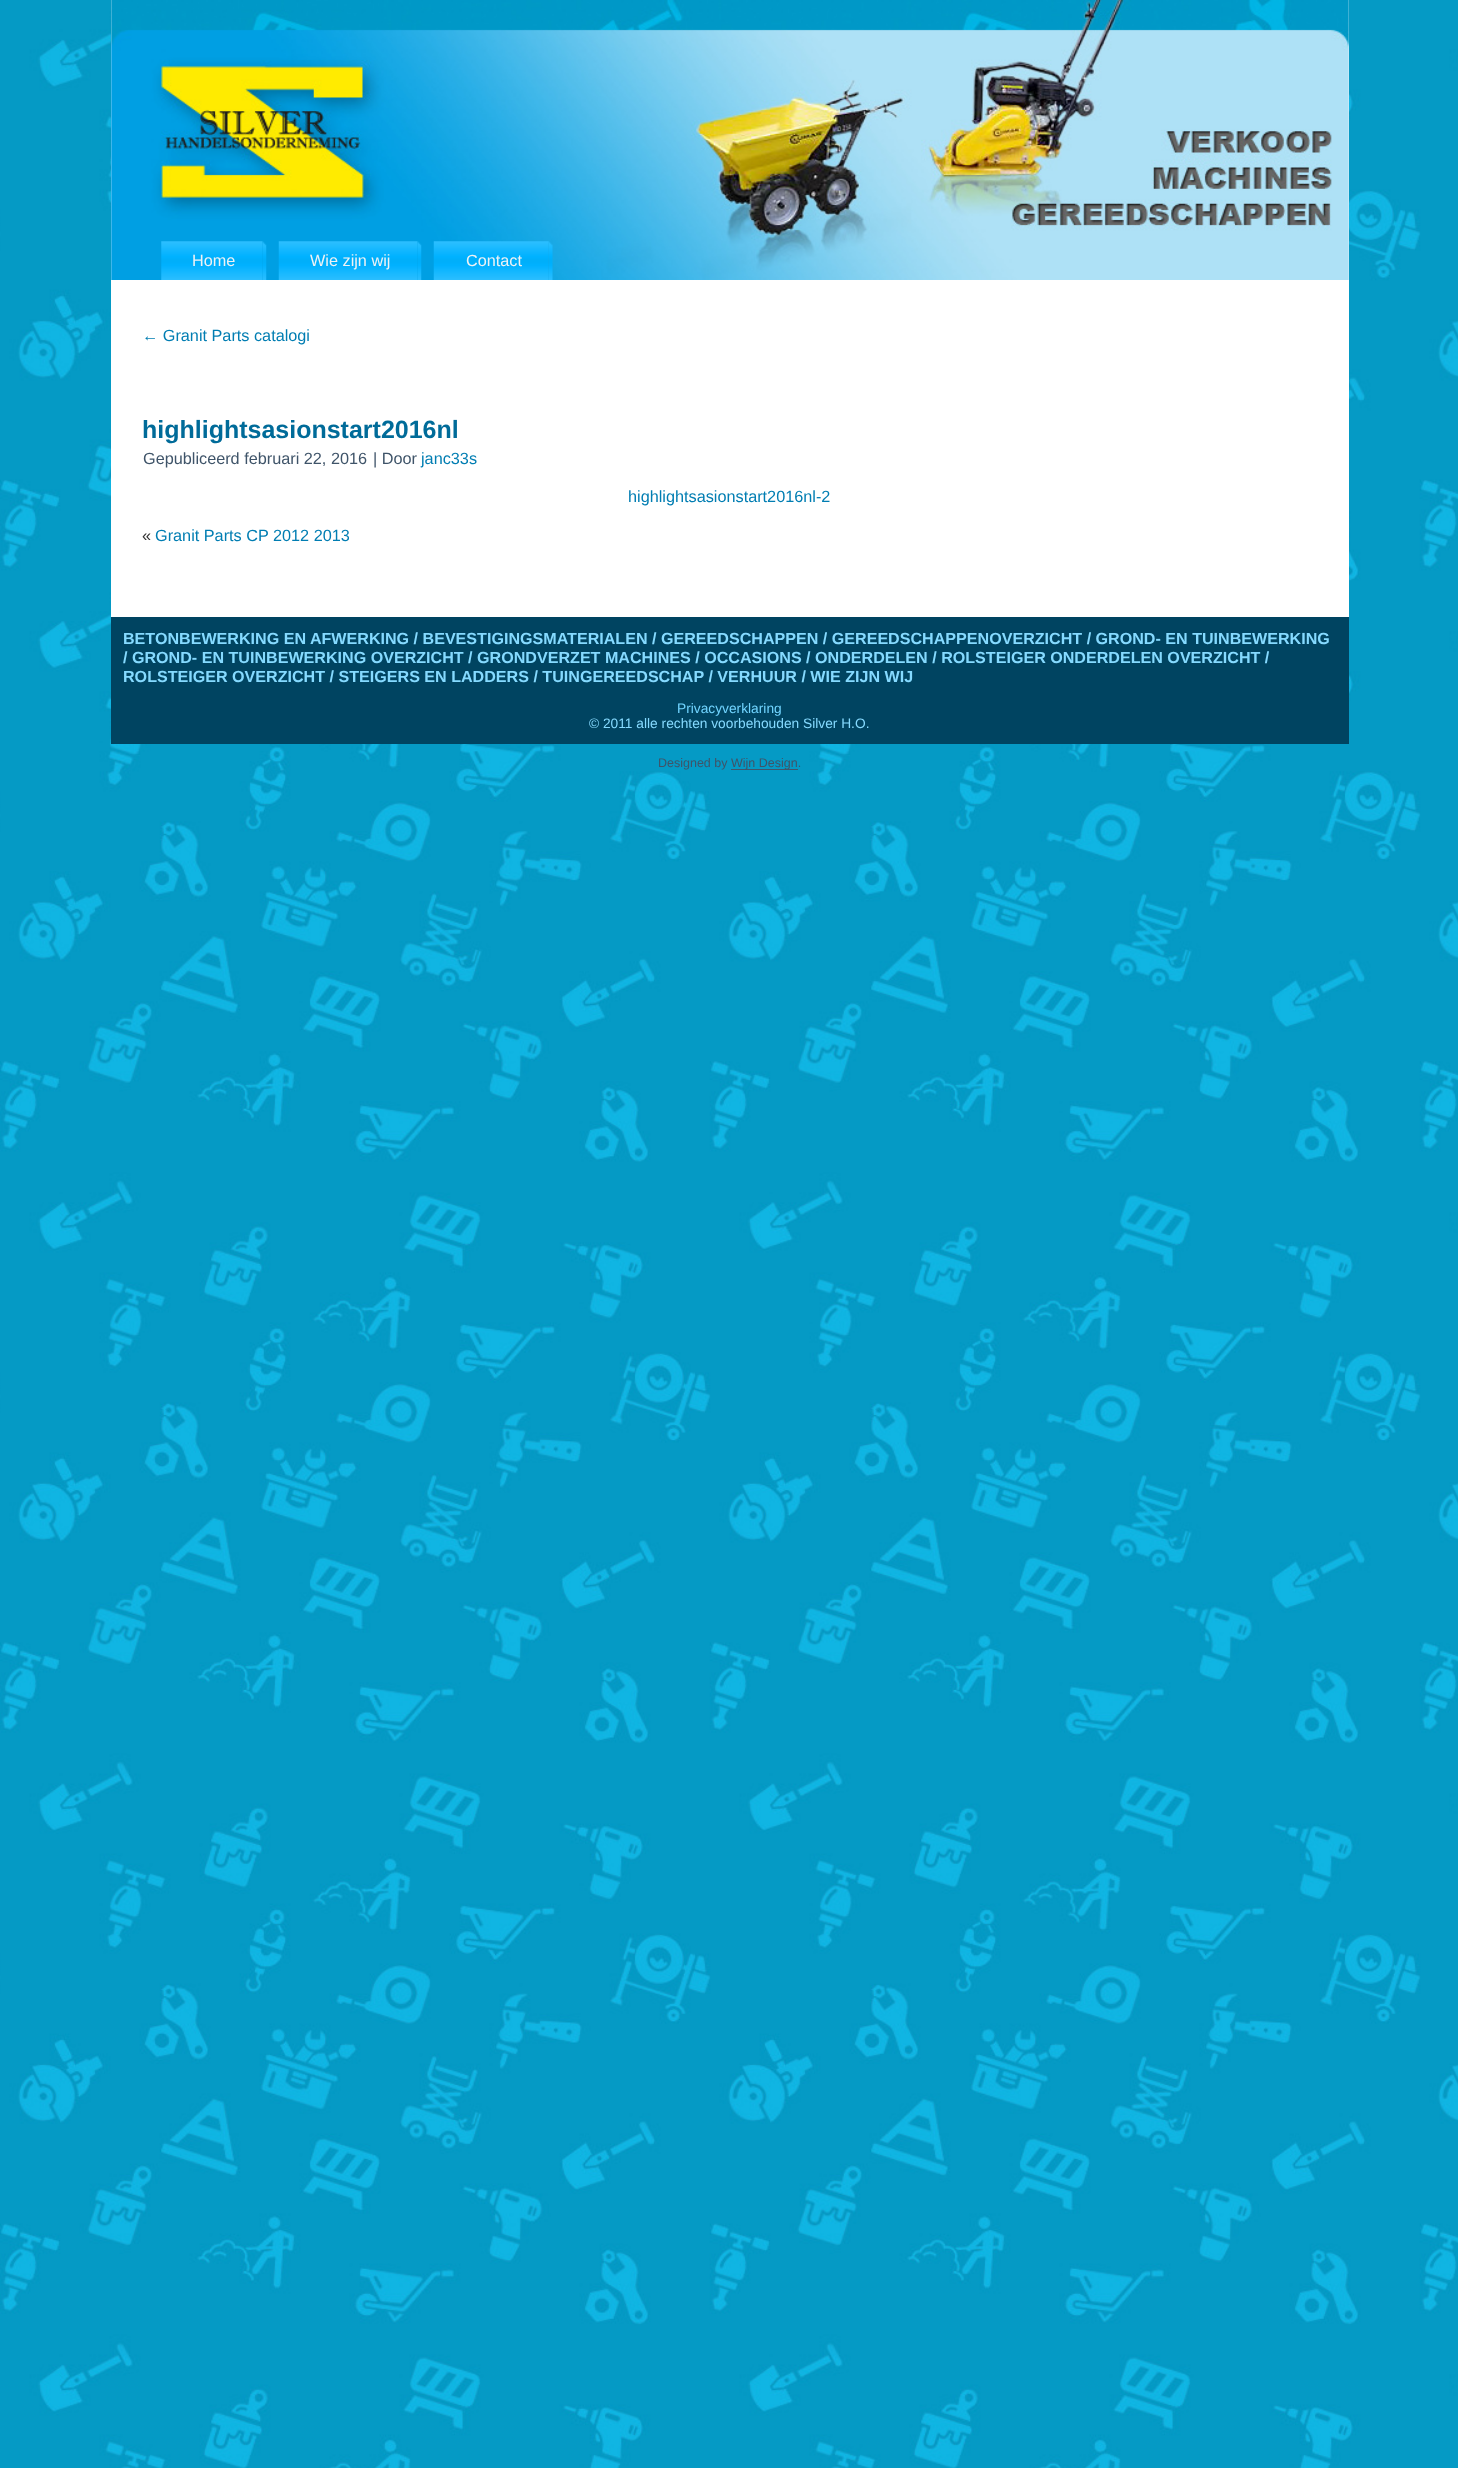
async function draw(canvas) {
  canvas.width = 1458
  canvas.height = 2468
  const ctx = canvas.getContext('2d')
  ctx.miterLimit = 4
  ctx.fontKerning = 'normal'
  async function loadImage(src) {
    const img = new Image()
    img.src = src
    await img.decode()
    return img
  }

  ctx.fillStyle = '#fff'
  ctx.fillRect(0, 0, 1458, 2468)
  ctx.drawImage(await loadImage('image0.png'), 0, 0, 1458, 2468)
  ctx.fillRect(111, 0, 1238, 617)
  ctx.drawImage(await loadImage('image1.png'), 111, 0, 1238, 280)
  ctx.drawImage(await loadImage('image2.png'), 161, 241, 102, 39)
  ctx.drawImage(await loadImage('image3.png'), 262, 241, 5, 39)
  ctx.font = '16.25px Liberation Sans'
  ctx.fillStyle = '#eff2f5'
  ctx.fillText('Home', 192, 266)
  ctx.drawImage(await loadImage('image4.png'), 278, 241, 140, 39)
  ctx.drawImage(await loadImage('image3.png'), 417, 241, 5, 39)
  ctx.fillText('Wie zijn wij', 310, 266)
  ctx.drawImage(await loadImage('image5.png'), 433, 241, 116, 39)
  ctx.drawImage(await loadImage('image6.png'), 549, 241, 4, 39)
  ctx.fillText('Contact', 466, 266)
  ctx.fillStyle = '#007db2'
  ctx.fillText('← Granit Parts catalogi', 142, 341)
  ctx.font = 'bold 25px Liberation Sans'
  ctx.fillStyle = '#006b99'
  ctx.fillText('highlightsasionstart2016nl', 142, 438)
  ctx.font = '16.25px Liberation Sans'
  ctx.fillStyle = '#3f5469'
  ctx.fillText('Gepubliceerd februari 22, 2016', 143, 464)
  ctx.fillText('| Door', 373, 464)
  ctx.fillStyle = '#007db2'
  ctx.fillText('janc33s', 421, 464)
  ctx.fillText('highlightsasionstart2016nl-2', 628, 502)
  ctx.fillStyle = '#333'
  ctx.fillText('«', 142, 541)
  ctx.fillStyle = '#007db2'
  ctx.fillText('Granit Parts CP 2012 2013', 155, 541)
  ctx.fillStyle = '#004461'
  ctx.fillRect(111, 617, 1238, 127)
  ctx.font = 'bold 16.1px Liberation Sans'
  ctx.fillStyle = '#85daff'
  ctx.fillText('BETONBEWERKING EN AFWERKING / BEVESTIGINGSMATERIALEN / GEREEDSCHAPPEN / GEREEDSCHAPPENOVERZICHT / GROND- EN TUINBEWERKING', 123, 644)
  ctx.fillText('/ GROND- EN TUINBEWERKING OVERZICHT / GRONDVERZET MACHINES / OCCASIONS / ONDERDELEN / ROLSTEIGER ONDERDELEN OVERZICHT /', 123, 663)
  ctx.fillText('ROLSTEIGER OVERZICHT / STEIGERS EN LADDERS / TUINGEREEDSCHAP / VERHUUR / WIE ZIJN WIJ', 123, 682)
  ctx.font = '13.75px Liberation Sans'
  ctx.fillStyle = '#70d4ff'
  ctx.fillText('Privacyverklaring', 677, 713)
  ctx.fillStyle = '#85daff'
  ctx.fillText('© 2011 alle rechten voorbehouden Silver H.O.', 589, 728)
  ctx.font = '12.5px Liberation Sans'
  ctx.fillStyle = '#3f5469'
  ctx.fillText('Designed by', 658, 767)
  ctx.fillStyle = '#41576c'
  ctx.fillRect(731, 769, 67, 1)
  ctx.fillStyle = '#3f5469'
  ctx.fillText('Wijn Design.', 731, 767)
}

draw(document.querySelector('canvas'))
